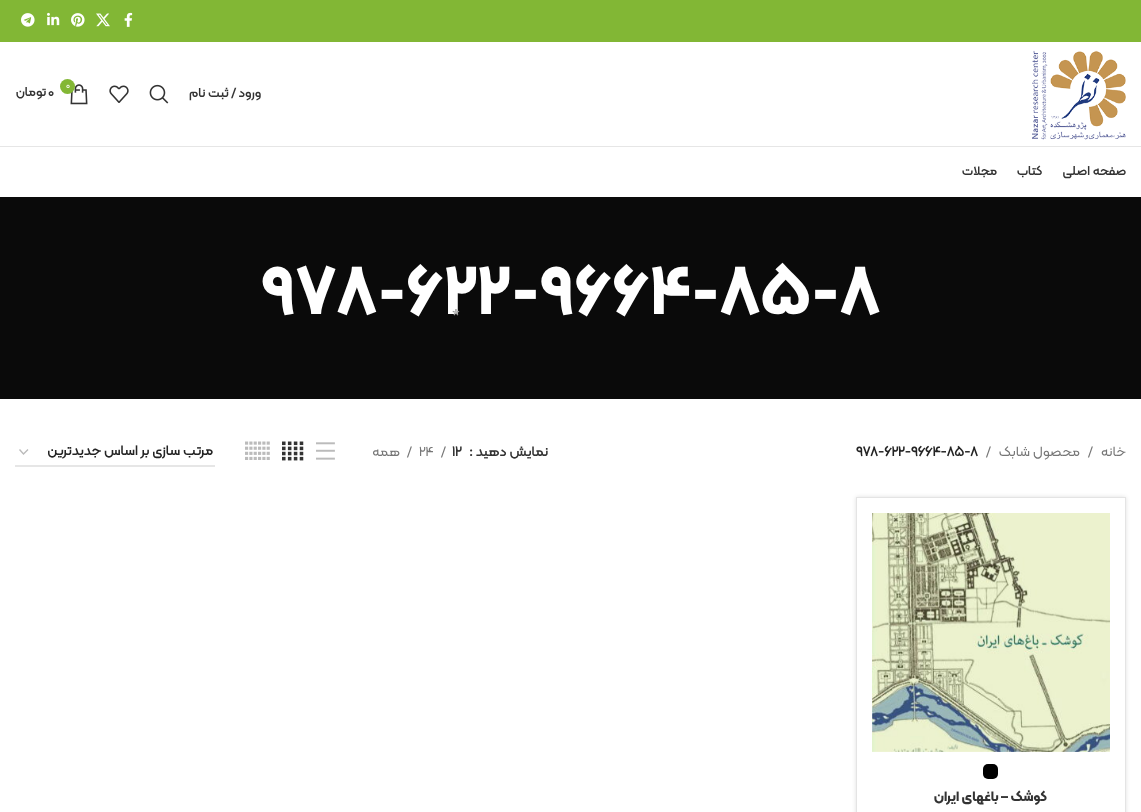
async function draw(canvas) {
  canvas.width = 1141
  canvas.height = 812
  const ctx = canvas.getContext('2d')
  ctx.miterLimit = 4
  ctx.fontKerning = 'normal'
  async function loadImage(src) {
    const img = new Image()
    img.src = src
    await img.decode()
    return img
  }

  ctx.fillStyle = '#fff'
  ctx.fillRect(0, 0, 1141, 812)
  ctx.fillStyle = '#82b735'
  ctx.fillRect(0, 0, 1141, 42)
  ctx.drawImage(await loadImage('image0.png'), 124, 12, 9, 15)
  ctx.drawImage(await loadImage('image1.png'), 96, 13, 14, 14)
  ctx.drawImage(await loadImage('image2.png'), 71, 13, 14, 14)
  ctx.drawImage(await loadImage('image3.png'), 47, 12, 13, 14)
  ctx.drawImage(await loadImage('image4.png'), 21, 13, 14, 14)
  ctx.direction = 'rtl'
  ctx.font = 'bold 13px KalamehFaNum'
  ctx.fillStyle = '#333'
  ctx.fillText('صفحه اصلی', 1126, 175)
  ctx.fillText('کتاب', 1042, 175)
  ctx.fillText('مجلات', 997, 175)
  ctx.fillStyle = '#e6e6e6'
  ctx.fillRect(0, 146, 1141, 1)
  ctx.drawImage(await loadImage('image5.png'), 1032, 50, 94, 90)
  ctx.fillStyle = '#333'
  ctx.fillText('ورود / ثبت نام', 261, 97)
  ctx.fillStyle = '#0a0a0a'
  ctx.fillRect(0, 197, 1141, 202)
  ctx.direction = 'ltr'
  ctx.font = 'bold 68px "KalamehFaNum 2"'
  ctx.fillStyle = '#fff'
  ctx.fillText('978-622-9664-85-8', 261, 314)
  ctx.font = '16px KalamehFaNum'
  ctx.fillStyle = '#959595'
  ctx.fillText('*', 452, 321)
  ctx.drawImage(await loadImage('image6.png'), 149, 84, 20, 20)
  ctx.drawImage(await loadImage('image7.png'), 109, 85, 20, 18)
  ctx.drawImage(await loadImage('image8.png'), 70, 84, 18, 21)
  ctx.fillStyle = '#83b735'
  ctx.beginPath()
  ctx.arc(67.5, 86.5, 7.5, 0, 2 * Math.PI)
  ctx.fill()
  ctx.font = '9px KalamehFaNum'
  ctx.fillStyle = '#fff'
  ctx.fillText('0', 66, 88)
  ctx.font = 'bold 13px KalamehFaNum'
  ctx.fillStyle = '#333'
  ctx.fillText('۰', 48, 96)
  ctx.direction = 'rtl'
  ctx.fillText('تومان', 46, 96)
  ctx.font = '14px KalamehFaNum'
  ctx.fillStyle = '#767676'
  ctx.fillText('خانه', 1126, 456)
  ctx.direction = 'ltr'
  ctx.fillText('/', 1088, 456)
  ctx.direction = 'rtl'
  ctx.fillText('محصول شابک', 1080, 456)
  ctx.direction = 'ltr'
  ctx.fillText('/', 986, 456)
  ctx.font = 'bold 14px KalamehFaNum'
  ctx.fillStyle = '#242424'
  ctx.fillText('978-622-9664-85-8', 856, 456)
  ctx.direction = 'rtl'
  ctx.fillStyle = '#333'
  ctx.fillText('نمایش دهید', 548, 456)
  ctx.direction = 'ltr'
  ctx.fillText(':', 469, 456)
  ctx.fillText('12', 452, 456)
  ctx.font = '14px KalamehFaNum'
  ctx.fillStyle = '#767676'
  ctx.fillText('/', 441, 456)
  ctx.fillText('24', 419, 456)
  ctx.fillText('/', 407, 456)
  ctx.direction = 'rtl'
  ctx.fillText('همه', 400, 456)
  ctx.drawImage(await loadImage('image9.png'), 316, 442, 19, 18)
  ctx.drawImage(await loadImage('image10.png'), 282, 441, 22, 20)
  ctx.drawImage(await loadImage('image11.png'), 245, 441, 25, 19)
  ctx.beginPath()
  ctx.moveTo(19.5, 449.5)
  ctx.lineTo(23.5, 454)
  ctx.lineTo(28, 449.5)
  ctx.strokeStyle = '#bbb'
  ctx.lineWidth = 1.4
  ctx.stroke()
  ctx.fillStyle = '#e6e6e6'
  ctx.fillRect(15, 465, 200, 2)
  ctx.font = 'bold 14px KalamehFaNum'
  ctx.fillStyle = '#242424'
  ctx.fillText('مرتب سازی بر اساس جدیدترین', 213, 455)
  ctx.save()
  ctx.beginPath()
  ctx.moveTo(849, 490)
  ctx.lineTo(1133, 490)
  ctx.lineTo(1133, 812)
  ctx.lineTo(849, 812)
  ctx.closePath()
  ctx.moveTo(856, 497)
  ctx.lineTo(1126, 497)
  ctx.lineTo(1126, 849)
  ctx.lineTo(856, 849)
  ctx.closePath()
  ctx.clip('evenodd')
  ctx.fillStyle = '#0000001f'
  ctx.filter = 'blur(2px)'
  ctx.beginPath()
  ctx.rect(856, 497, 270, 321)
  ctx.fill()
  ctx.filter = 'none'
  ctx.restore()
  ctx.strokeStyle = '#e4e4e4'
  ctx.lineWidth = 1
  ctx.strokeRect(856.5, 497.5, 269, 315)
  ctx.drawImage(await loadImage('image12.png'), 872, 513, 238, 239)
  ctx.fillStyle = '#000'
  ctx.beginPath()
  ctx.roundRect(983, 764, 15, 15, 5)
  ctx.fill()
  ctx.font = 'bold 14px "KalamehFaNum 2"'
  ctx.fillStyle = '#333'
  ctx.fillText('کوشک – باغهای ایران', 1047, 801)
}

draw(document.querySelector('canvas'))
